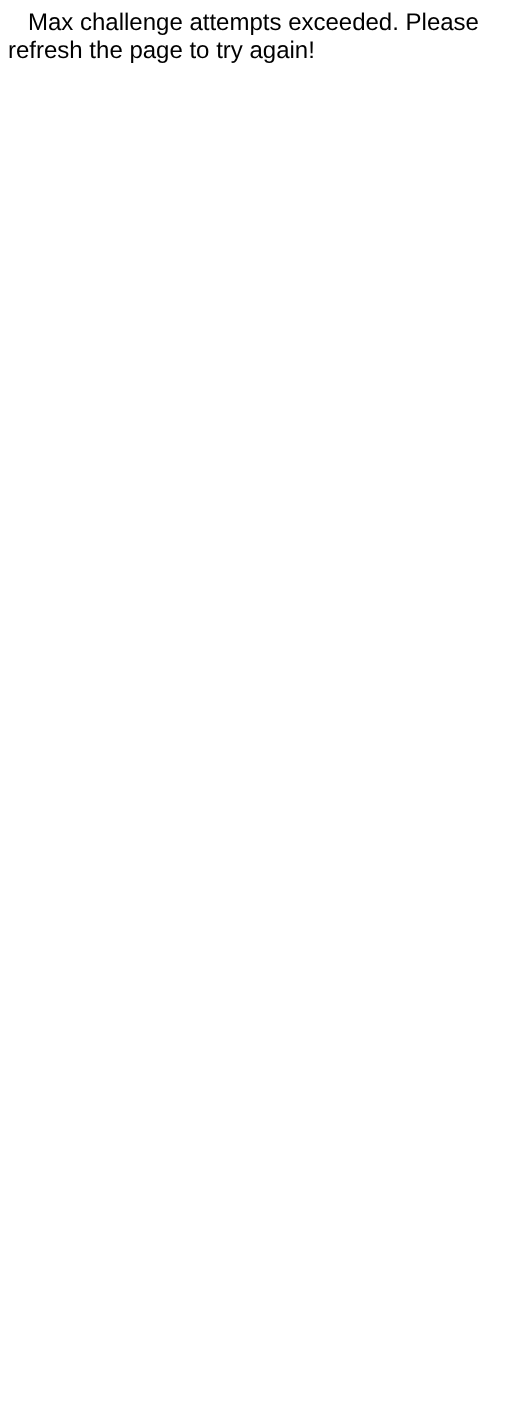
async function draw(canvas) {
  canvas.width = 506
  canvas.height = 1412
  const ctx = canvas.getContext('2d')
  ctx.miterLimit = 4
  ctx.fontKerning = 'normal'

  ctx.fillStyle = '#fff'
  ctx.fillRect(0, 0, 506, 1412)
  ctx.font = '24px Liberation Sans'
  ctx.fillStyle = '#000'
  ctx.fillText('Max challenge attempts exceeded. Please', 28, 30)
  ctx.fillText('refresh the page to try again!', 8, 58)
}

draw(document.querySelector('canvas'))
